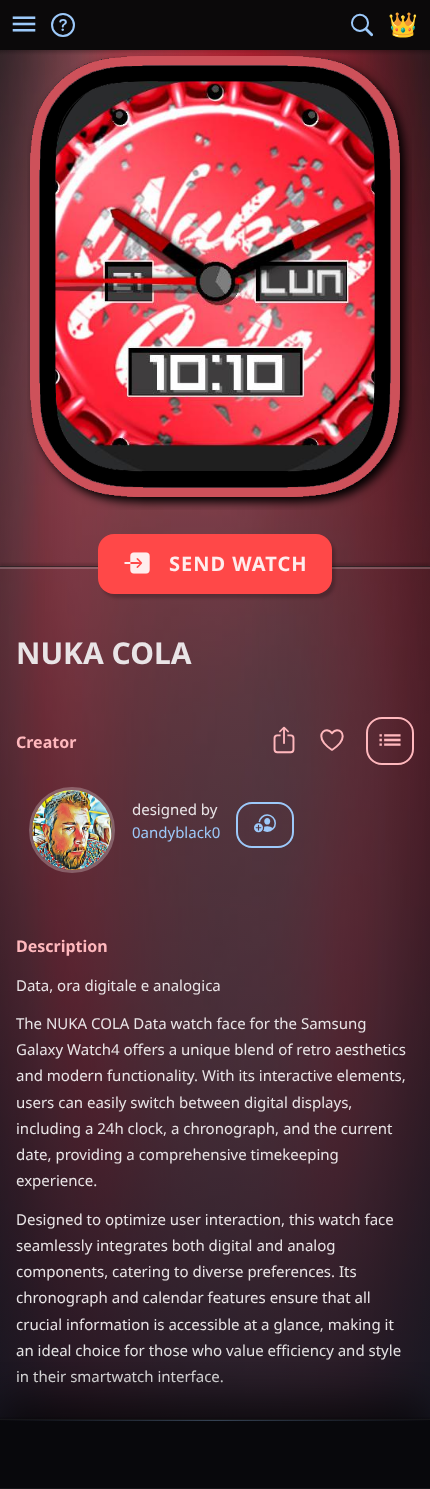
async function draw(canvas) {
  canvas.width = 430
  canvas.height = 1489
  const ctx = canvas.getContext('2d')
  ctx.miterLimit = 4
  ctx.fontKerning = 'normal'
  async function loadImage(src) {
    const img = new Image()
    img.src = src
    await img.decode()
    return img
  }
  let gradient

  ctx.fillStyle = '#fff'
  ctx.fillRect(0, 0, 430, 1489)
  ctx.fillStyle = '#0b090a'
  ctx.fillRect(0, 0, 430, 50)
  ctx.drawImage(await loadImage('image0.png'), 0, 50, 430, 1438)
  ctx.drawImage(await loadImage('image1.png'), 27, 52, 385, 458)
  gradient = ctx.createLinearGradient(215, 50, 215, 58)
  gradient.addColorStop(0, '#00000040')
  gradient.addColorStop(0.4, '#00000014')
  gradient.addColorStop(0.5, '#0000000a')
  gradient.addColorStop(0.9, '#00000000')
  gradient.addColorStop(1, '#00000000')
  ctx.fillStyle = gradient
  ctx.fillRect(0, 50, 430, 5)
  ctx.font = '30px "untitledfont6"'
  ctx.fillStyle = '#9dc9fa'
  ctx.fillText('W', 9, 39)
  ctx.font = '28px "untitledfont6"'
  ctx.fillText('k', 49, 39)
  ctx.fillText('c', 348, 39)
  ctx.font = '24px Noto Color Emoji'
  ctx.fillText('👑', 388, 33)
  ctx.drawImage(await loadImage('image3.png'), 55, 81, 320, 391)
  ctx.drawImage(await loadImage('image2.png'), 30, 56, 370, 441)
  ctx.save()
  ctx.beginPath()
  ctx.rect(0, 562, 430, 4)
  ctx.clip()
  ctx.fillStyle = '#00000033'
  ctx.filter = 'blur(1.5px)'
  ctx.beginPath()
  ctx.rect(0, 564, 430, 3)
  ctx.fill()
  ctx.filter = 'none'
  ctx.restore()
  ctx.fillStyle = '#ffffff33'
  ctx.fillRect(0, 566, 430, 3)
  ctx.fillStyle = '#00000099'
  ctx.fillRect(0, 566, 430, 1)
  ctx.fillStyle = '#00000033'
  ctx.filter = 'blur(1.5px)'
  ctx.beginPath()
  ctx.roundRect(101, 538, 234, 60, 16)
  ctx.fill()
  ctx.filter = 'none'
  ctx.fillStyle = '#ff4848'
  ctx.beginPath()
  ctx.roundRect(98, 534, 234, 60, 16)
  ctx.fill()
  ctx.font = '28px "untitledfont6"'
  ctx.fillStyle = '#ffeded'
  ctx.fillText('Q', 123, 577)
  ctx.letterSpacing = '1px'
  ctx.font = 'bold 20px Noto Sans'
  ctx.fillText('SEND WATCH', 169, 571)
  ctx.letterSpacing = '0px'
  ctx.font = 'bold 30px Noto Sans'
  ctx.fillStyle = '#e9e4e6'
  ctx.fillText('NUKA COLA', 16, 664)
  ctx.font = 'bold 16px Noto Sans'
  ctx.fillStyle = '#ffb8bd'
  ctx.fillText('Creator', 16, 748)
  ctx.font = '28px "untitledfont6"'
  ctx.fillText('i', 270, 754)
  ctx.fillText('b', 318, 754)
  ctx.beginPath()
  ctx.roundRect(367, 718, 46, 46, 15)
  ctx.strokeStyle = '#ffb8bd'
  ctx.lineWidth = 2
  ctx.stroke()
  ctx.fillText('X', 376, 754)
  ctx.beginPath()
  ctx.arc(72, 830, 41.5, 0, 2 * Math.PI)
  ctx.strokeStyle = '#ffffff40'
  ctx.lineWidth = 3
  ctx.stroke()
  ctx.drawImage(await loadImage('image4.png'), 32, 790, 80, 80)
  ctx.font = '15px Noto Sans'
  ctx.fillStyle = '#e9e4e6'
  ctx.fillText('designed by', 132, 815)
  ctx.fillStyle = '#9dc9fa'
  ctx.fillText('0andyblack0', 132, 838)
  ctx.beginPath()
  ctx.roundRect(237, 803, 56, 44, 15)
  ctx.strokeStyle = '#9dc9fa'
  ctx.lineWidth = 2
  ctx.stroke()
  ctx.font = '22px "untitledfont6"'
  ctx.fillText('G', 254, 834)
  ctx.font = 'bold 16px Noto Sans'
  ctx.fillStyle = '#ffb8bd'
  ctx.fillText('Description', 16, 952)
  ctx.font = '15px Noto Sans'
  ctx.fillStyle = '#e9e4e6'
  ctx.fillText('Data, ora digitale e analogica', 16, 991)
  ctx.fillText('The NUKA COLA Data watch face for the Samsung', 16, 1029)
  ctx.fillText('Galaxy Watch4 offers a unique blend of retro aesthetics', 16, 1055)
  ctx.fillText('and modern functionality. With its interactive elements,', 16, 1081)
  ctx.fillText('users can easily switch between digital displays,', 16, 1108)
  ctx.fillText('including a 24h clock, a chronograph, and the current', 16, 1134)
  ctx.fillText('date, providing a comprehensive timekeeping', 16, 1160)
  ctx.fillText('experience.', 16, 1186)
  ctx.fillText('Designed to optimize user interaction, this watch face', 16, 1225)
  ctx.fillText('seamlessly integrates both digital and analog', 16, 1251)
  ctx.fillText('components, catering to diverse preferences. Its', 16, 1277)
  ctx.fillText('chronograph and calendar features ensure that all', 16, 1303)
  ctx.fillText('crucial information is accessible at a glance, making it', 16, 1330)
  ctx.fillStyle = '#e3e2e3'
  ctx.fillText('an ideal choice for those who value efficiency and style', 16, 1356)
  ctx.fillText('in their smartwatch interface.', 16, 1382)
  ctx.save()
  ctx.beginPath()
  ctx.rect(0, 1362, 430, 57)
  ctx.clip()
  ctx.fillStyle = '#00000099'
  ctx.filter = 'blur(20px)'
  ctx.beginPath()
  ctx.rect(0, 1399, 430, 70)
  ctx.fill()
  ctx.filter = 'none'
  ctx.restore()
  ctx.fillStyle = '#08080cfa'
  ctx.fillRect(0, 1421, 430, 67)
  ctx.fillStyle = '#151519'
  ctx.fillRect(0, 1488, 430, 1)
  ctx.fillStyle = '#1c1c20'
  ctx.fillRect(0, 1419, 430, 1)
  gradient = ctx.createLinearGradient(215, 1420, 215, 1412)
  gradient.addColorStop(0, '#00000040')
  gradient.addColorStop(0.4, '#00000014')
  gradient.addColorStop(0.5, '#0000000a')
  gradient.addColorStop(0.9, '#00000000')
  gradient.addColorStop(1, '#00000000')
  ctx.fillStyle = gradient
  ctx.fillRect(0, 1417, 430, 3)
  gradient = ctx.createLinearGradient(0, 1421, 430, 1421)
  gradient.addColorStop(0, '#09080d')
  gradient.addColorStop(0.5, '#354254')
  gradient.addColorStop(1, '#09080d')
  ctx.fillStyle = gradient
  ctx.fillRect(0, 1420, 430, 1)
}

draw(document.querySelector('canvas'))
